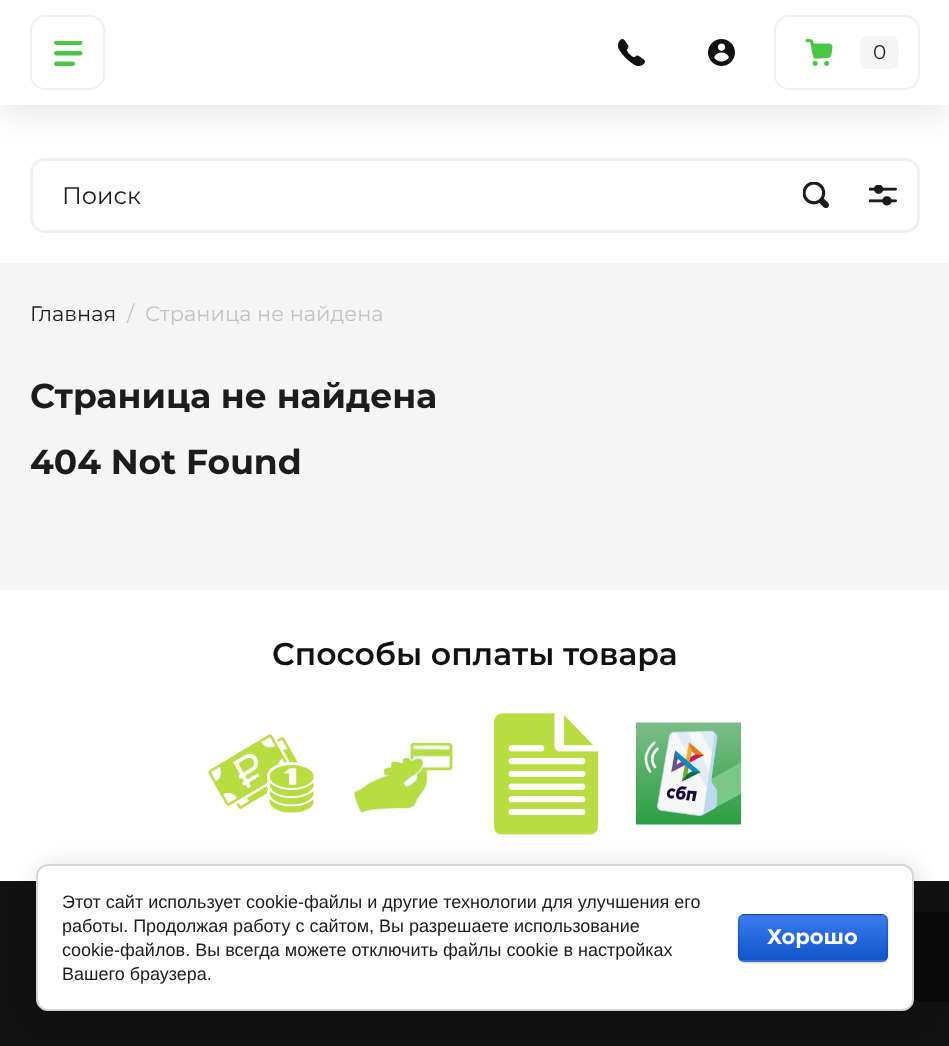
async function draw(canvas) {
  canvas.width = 949
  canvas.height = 1046
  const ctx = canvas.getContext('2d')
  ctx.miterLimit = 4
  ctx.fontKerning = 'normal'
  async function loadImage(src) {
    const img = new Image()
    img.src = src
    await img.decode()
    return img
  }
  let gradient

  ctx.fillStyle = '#f5f5f5'
  ctx.fillRect(0, 0, 949, 1046)
  ctx.fillStyle = '#fff'
  ctx.fillRect(0, 105, 949, 158)
  ctx.beginPath()
  ctx.roundRect(31.5, 159.5, 887, 72, 13.5)
  ctx.strokeStyle = '#f0f0f0'
  ctx.lineWidth = 3
  ctx.stroke()
  ctx.beginPath()
  ctx.roundRect(848, 161, 69, 69, [0, 12, 12, 0])
  ctx.fill()
  ctx.fillStyle = '#0000001a'
  ctx.filter = 'blur(19px)'
  ctx.beginPath()
  ctx.rect(0, 8, 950, 105)
  ctx.fill()
  ctx.filter = 'none'
  ctx.fillStyle = '#fff'
  ctx.fillRect(0, 0, 949, 105)
  ctx.beginPath()
  ctx.roundRect(31, 16, 73, 73, 14)
  ctx.lineWidth = 2
  ctx.stroke()
  ctx.drawImage(await loadImage('image0.png'), 54, 41, 29, 25)
  ctx.drawImage(await loadImage('image1.png'), 618, 39, 27, 27)
  ctx.drawImage(await loadImage('image2.png'), 708, 39, 27, 27)
  ctx.beginPath()
  ctx.roundRect(775, 16, 144, 73, 14)
  ctx.stroke()
  ctx.drawImage(await loadImage('image3.png'), 805, 39, 28, 27)
  ctx.fillStyle = '#f5f5f5'
  ctx.beginPath()
  ctx.roundRect(860, 36, 39, 33, 8)
  ctx.fill()
  ctx.font = '20px Montserrat'
  ctx.fillStyle = '#1c1c1c'
  ctx.fillText('0', 873, 59)
  ctx.font = '24px Montserrat'
  ctx.fillText('Поиск', 62, 204)
  ctx.drawImage(await loadImage('image4.png'), 803, 182, 26, 27)
  ctx.drawImage(await loadImage('image5.png'), 869, 185, 28, 21)
  ctx.font = '21px Montserrat'
  ctx.fillText('Главная', 30, 321)
  ctx.fillStyle = '#c3c3c3'
  ctx.fillText('/  Страница не найдена', 127, 321)
  ctx.font = 'bold 34.5px Montserrat'
  ctx.fillStyle = '#1c1c1c'
  ctx.fillText('Страница не найдена', 30, 408)
  ctx.fillText('404 Not Found', 30, 474)
  ctx.fillStyle = '#fff'
  ctx.fillRect(0, 590, 949, 291)
  ctx.font = '600 31.5px Montserrat'
  ctx.fillStyle = '#111'
  ctx.fillText('Способы оплаты товара', 272, 665)
  ctx.drawImage(await loadImage('image6.png'), 208, 734, 106, 79)
  ctx.drawImage(await loadImage('image7.png'), 354, 742, 99, 71)
  ctx.drawImage(await loadImage('image8.png'), 494, 713, 104, 122)
  ctx.drawImage(await loadImage('image9.png'), 636, 722, 105, 103)
  ctx.fillRect(0, 881, 949, 165)
  ctx.fillStyle = '#00000066'
  ctx.fillRect(913, 912, 36, 90)
  ctx.fillStyle = '#00000024'
  ctx.filter = 'blur(13.5px)'
  ctx.beginPath()
  ctx.roundRect(39, 867, 878, 147, 12)
  ctx.fill()
  ctx.filter = 'none'
  ctx.fillStyle = '#fff'
  ctx.beginPath()
  ctx.roundRect(37, 865, 876, 145, 11)
  ctx.fill()
  ctx.strokeStyle = '#d6d6d6'
  ctx.stroke()
  ctx.font = '18px Liberation Sans'
  ctx.fillStyle = '#1c1c1c'
  ctx.fillText('Этот сайт использует cookie-файлы и другие технологии для улучшения его', 62, 908)
  ctx.fillText('работы. Продолжая работу с сайтом, Вы разрешаете использование', 62, 932)
  ctx.fillText('cookie-файлов. Вы всегда можете отключить файлы cookie в настройках', 62, 956)
  ctx.fillText('Вашего браузера.', 62, 980)
  ctx.fillStyle = '#00000033'
  ctx.filter = 'blur(1px)'
  ctx.beginPath()
  ctx.roundRect(738, 915, 150, 48, 6)
  ctx.fill()
  ctx.filter = 'none'
  ctx.save()
  ctx.beginPath()
  ctx.roundRect(738, 914, 150, 48, 6)
  ctx.clip()
  gradient = ctx.createLinearGradient(813, 870, 813, 915)
  gradient.addColorStop(0, '#3b7cef')
  gradient.addColorStop(1, '#15c')
  ctx.fillStyle = gradient
  ctx.fillRect(738, 914, 150, 1)
  gradient = ctx.createLinearGradient(813, 915, 813, 960)
  gradient.addColorStop(0, '#3b7cef')
  gradient.addColorStop(1, '#15c')
  ctx.fillStyle = gradient
  ctx.fillRect(738, 915, 150, 45)
  gradient = ctx.createLinearGradient(813, 960, 813, 1005)
  gradient.addColorStop(0, '#3b7cef')
  gradient.addColorStop(1, '#15c')
  ctx.fillStyle = gradient
  ctx.fillRect(738, 960, 150, 2)
  ctx.restore()
  ctx.beginPath()
  ctx.roundRect(739, 915, 148, 46, 5)
  ctx.strokeStyle = '#0000001a'
  ctx.stroke()
  ctx.font = 'bold 21px Montserrat'
  ctx.fillStyle = '#fff'
  ctx.fillText('Хорошо', 767, 944)
}

draw(document.querySelector('canvas'))
